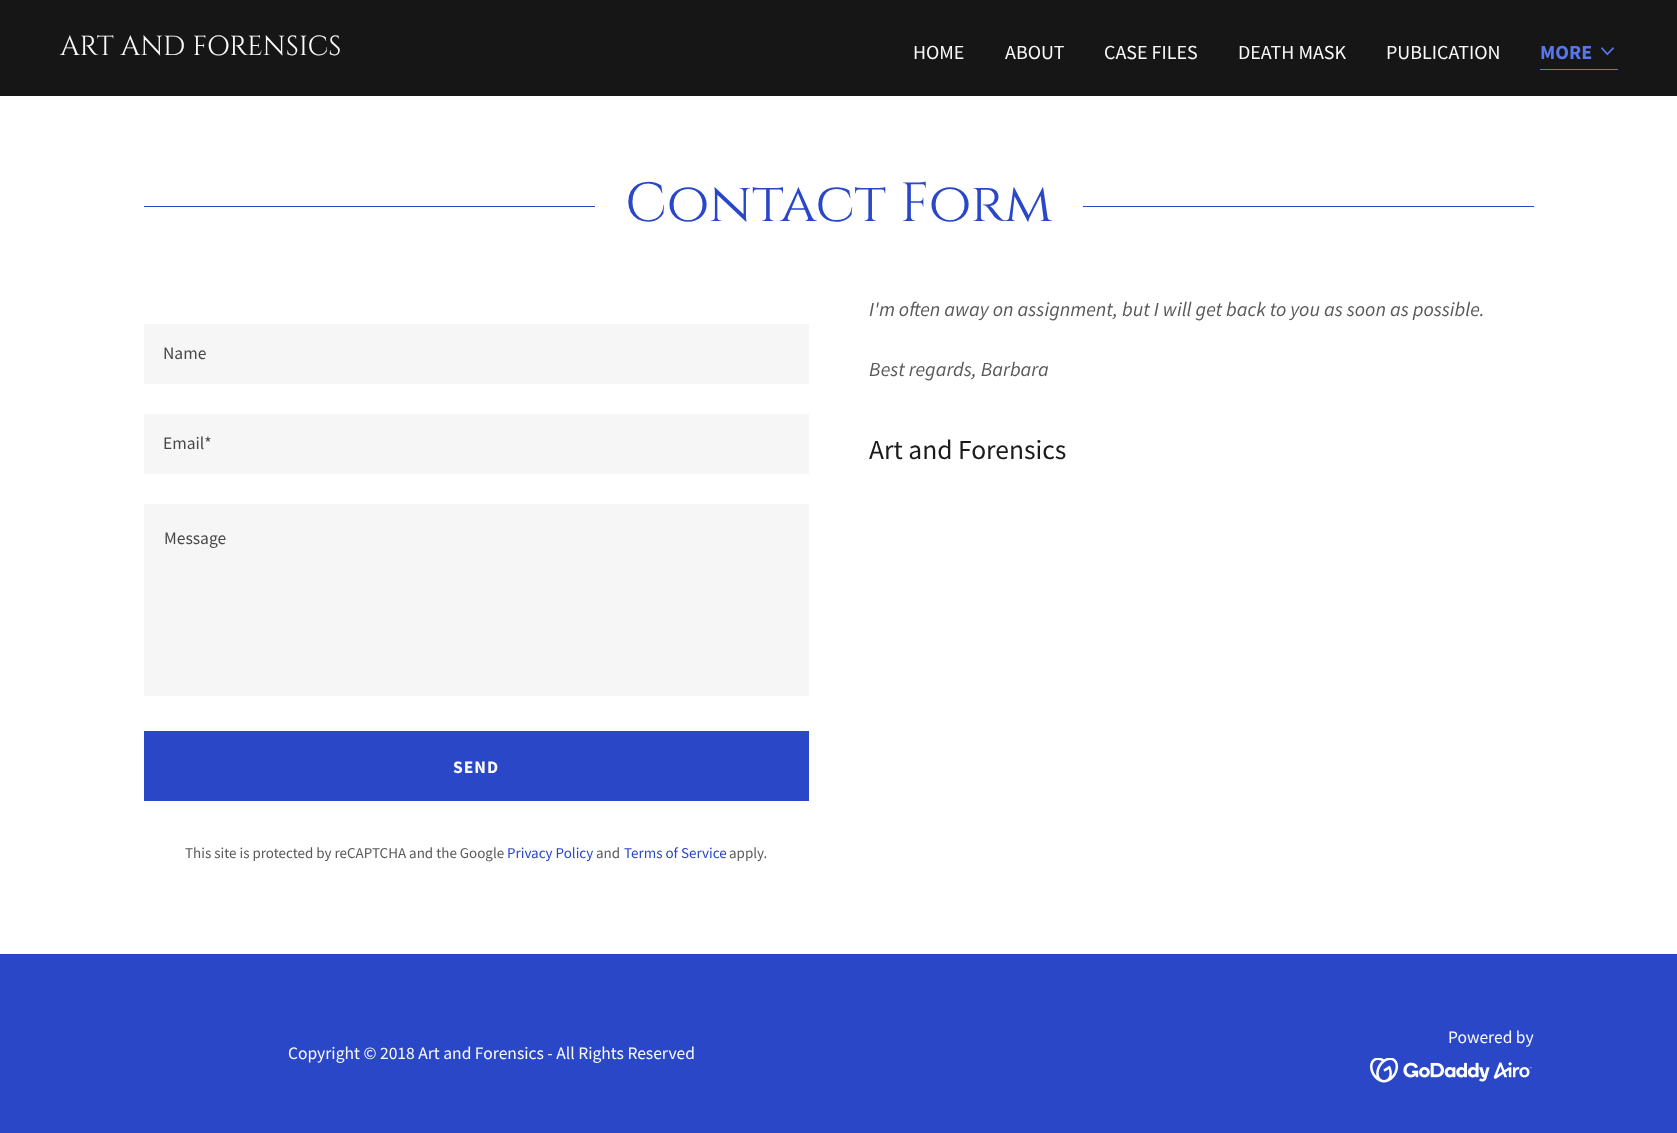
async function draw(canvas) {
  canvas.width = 1677
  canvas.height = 1133
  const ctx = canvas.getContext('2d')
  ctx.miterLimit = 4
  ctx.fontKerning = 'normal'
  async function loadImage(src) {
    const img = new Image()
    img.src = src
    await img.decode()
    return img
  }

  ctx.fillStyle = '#2947c7'
  ctx.fillRect(0, 0, 1677, 1133)
  ctx.fillStyle = '#161616'
  ctx.fillRect(0, 0, 1677, 96)
  ctx.font = '27.5px Cinzel'
  ctx.fillStyle = '#fafafa'
  ctx.fillText('ART AND FORENSICS', 60, 55)
  ctx.font = '20px Source Sans Pro'
  ctx.fillText('HOME', 913, 59)
  ctx.fillText('ABOUT', 1005, 59)
  ctx.fillText('CASE FILES', 1104, 59)
  ctx.fillText('DEATH MASK', 1238, 59)
  ctx.fillText('PUBLICATION', 1386, 59)
  ctx.fillStyle = '#5a76ed'
  ctx.fillRect(1540, 69, 78, 1)
  ctx.font = 'bold 20px Source Sans Pro'
  ctx.fillText('MORE', 1540, 59)
  ctx.drawImage(await loadImage('image0.png'), 1600, 47, 15, 9)
  ctx.fillStyle = '#fff'
  ctx.fillRect(0, 96, 1677, 858)
  ctx.fillStyle = '#2947c7'
  ctx.fillRect(144, 206, 451, 1)
  ctx.font = '55px Cinzel'
  ctx.fillText('Contact Form', 625, 221)
  ctx.fillRect(1083, 206, 451, 1)
  ctx.fillStyle = '#f6f6f6'
  ctx.fillRect(144, 324, 665, 60)
  ctx.font = '17.5px Source Sans Pro'
  ctx.fillStyle = '#474747'
  ctx.fillText('Name', 163, 359)
  ctx.fillStyle = '#f6f6f6'
  ctx.fillRect(144, 414, 665, 60)
  ctx.fillStyle = '#474747'
  ctx.fillText('Email*', 163, 449)
  ctx.fillStyle = '#f6f6f6'
  ctx.fillRect(144, 504, 665, 192)
  ctx.fillStyle = '#474747'
  ctx.fillText('Message', 164, 544)
  ctx.fillStyle = '#2947c7'
  ctx.fillRect(144, 731, 665, 70)
  ctx.letterSpacing = '1px'
  ctx.font = 'bold 17.5px Source Sans Pro'
  ctx.fillStyle = '#fafafa'
  ctx.fillText('SEND', 453, 773)
  ctx.letterSpacing = '0px'
  ctx.font = '15px Source Sans Pro'
  ctx.fillStyle = '#595959'
  ctx.fillText('This site is protected by reCAPTCHA and the Google', 185, 858)
  ctx.fillStyle = '#2947c7'
  ctx.fillText('Privacy Policy', 507, 858)
  ctx.fillStyle = '#595959'
  ctx.fillText('and', 596, 858)
  ctx.fillStyle = '#2947c7'
  ctx.fillText('Terms of Service', 624, 858)
  ctx.fillStyle = '#595959'
  ctx.fillText('apply.', 729, 858)
  ctx.font = 'italic 20px Source Sans Pro'
  ctx.fillText('I\'m often away on assignment, but I will get back to you as soon as possible.', 869, 316)
  ctx.fillText('Best regards, Barbara', 869, 376)
  ctx.font = '27.5px Source Sans Pro'
  ctx.fillStyle = '#1b1b1b'
  ctx.fillText('Art and Forensics', 869, 459)
  ctx.font = '17.5px Source Sans Pro'
  ctx.fillStyle = '#fafafa'
  ctx.fillText('Powered by', 1448, 1043)
  ctx.drawImage(await loadImage('image1.png'), 1370, 1058, 162, 25)
  ctx.fillText('Copyright © 2018 Art and Forensics - All Rights Reserved', 288, 1059)
}

draw(document.querySelector('canvas'))
